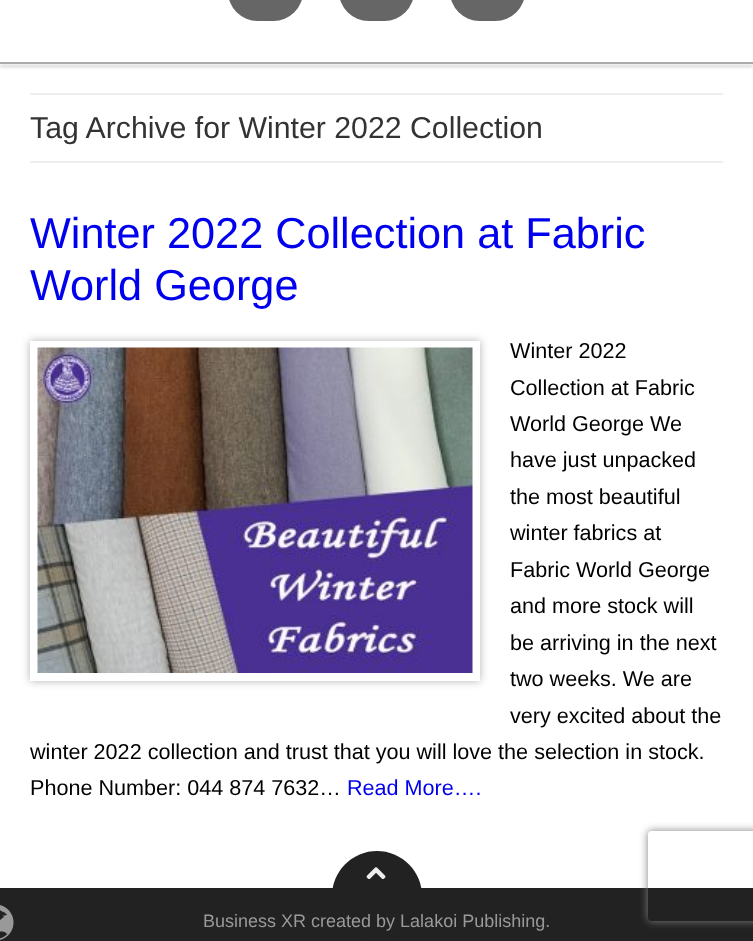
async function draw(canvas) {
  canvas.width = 753
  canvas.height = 941
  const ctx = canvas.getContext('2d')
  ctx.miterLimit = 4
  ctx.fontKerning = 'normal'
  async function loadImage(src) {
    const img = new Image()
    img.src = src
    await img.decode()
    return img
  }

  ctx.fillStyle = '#fff'
  ctx.fillRect(0, 0, 753, 941)
  ctx.fillStyle = '#666'
  ctx.beginPath()
  ctx.roundRect(228, -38, 75, 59, 37.5)
  ctx.fill()
  ctx.beginPath()
  ctx.roundRect(339, -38, 75, 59, 37.5)
  ctx.fill()
  ctx.beginPath()
  ctx.roundRect(450, -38, 75, 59, 37.5)
  ctx.fill()
  ctx.fillStyle = '#00000033'
  ctx.filter = 'blur(1.5px)'
  ctx.beginPath()
  ctx.rect(0, 65, 753, 2)
  ctx.fill()
  ctx.filter = 'none'
  ctx.fillStyle = '#aaa'
  ctx.fillRect(0, 62, 753, 2)
  ctx.fillStyle = '#eee'
  ctx.fillRect(30, 93, 693, 2)
  ctx.fillRect(30, 161, 693, 2)
  ctx.font = '30.25px Liberation Sans'
  ctx.fillStyle = '#333'
  ctx.fillText('Tag Archive for Winter 2022 Collection', 30, 138)
  ctx.font = '43.25px Liberation Sans'
  ctx.fillStyle = '#00e'
  ctx.fillText('Winter 2022 Collection at Fabric', 30, 248)
  ctx.fillText('World George', 30, 300)
  ctx.save()
  ctx.beginPath()
  ctx.moveTo(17, 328)
  ctx.lineTo(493, 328)
  ctx.lineTo(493, 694)
  ctx.lineTo(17, 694)
  ctx.closePath()
  ctx.moveTo(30, 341)
  ctx.lineTo(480, 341)
  ctx.lineTo(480, 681)
  ctx.lineTo(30, 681)
  ctx.closePath()
  ctx.clip('evenodd')
  ctx.fillStyle = '#0000004d'
  ctx.filter = 'blur(4px)'
  ctx.beginPath()
  ctx.rect(30, 341, 450, 340)
  ctx.fill()
  ctx.filter = 'none'
  ctx.restore()
  ctx.drawImage(await loadImage('image0.png'), 37, 347, 436, 326)
  ctx.font = '21.6px Liberation Sans'
  ctx.fillStyle = '#000'
  ctx.fillText('Winter 2022', 510, 358)
  ctx.fillText('Collection at Fabric', 510, 395)
  ctx.fillText('World George We', 510, 431)
  ctx.fillText('have just unpacked', 510, 467)
  ctx.fillText('the most beautiful', 510, 504)
  ctx.fillText('winter fabrics at', 510, 540)
  ctx.fillText('Fabric World George', 510, 577)
  ctx.fillText('and more stock will', 510, 613)
  ctx.fillText('be arriving in the next', 510, 650)
  ctx.fillText('two weeks. We are', 510, 686)
  ctx.fillText('very excited about the', 510, 723)
  ctx.fillText('winter 2022 collection and trust that you will love the selection in stock.', 30, 759)
  ctx.fillText('Phone Number: 044 874 7632…', 30, 795)
  ctx.fillStyle = '#00e'
  ctx.fillText('Read More….', 347, 795)
  ctx.fillStyle = '#222'
  ctx.fillRect(0, 888, 753, 53)
  ctx.beginPath()
  ctx.arc(377, 896, 45, 0, 2 * Math.PI)
  ctx.fill()
  ctx.drawImage(await loadImage('image1.png'), 366, 867, 20, 13)
  ctx.drawImage(await loadImage('image2.png'), 0, 905, 14, 35)
  ctx.font = '18px Liberation Sans'
  ctx.fillStyle = '#999'
  ctx.fillText('Business XR created by Lalakoi Publishing.', 203, 927)
  ctx.save()
  ctx.beginPath()
  ctx.moveTo(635, 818)
  ctx.lineTo(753, 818)
  ctx.lineTo(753, 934)
  ctx.lineTo(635, 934)
  ctx.closePath()
  ctx.moveTo(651, 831)
  ctx.lineTo(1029, 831)
  ctx.bezierCurveTo(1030.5, 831, 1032, 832.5, 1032, 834)
  ctx.lineTo(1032, 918)
  ctx.bezierCurveTo(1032, 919.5, 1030.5, 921, 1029, 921)
  ctx.lineTo(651, 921)
  ctx.bezierCurveTo(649.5, 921, 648, 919.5, 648, 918)
  ctx.lineTo(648, 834)
  ctx.bezierCurveTo(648, 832.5, 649.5, 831, 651, 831)
  ctx.closePath()
  ctx.clip('evenodd')
  ctx.fillStyle = '#808080'
  ctx.filter = 'blur(4px)'
  ctx.beginPath()
  ctx.roundRect(648, 831, 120, 90, 3)
  ctx.fill()
  ctx.filter = 'none'
  ctx.restore()
}

draw(document.querySelector('canvas'))
